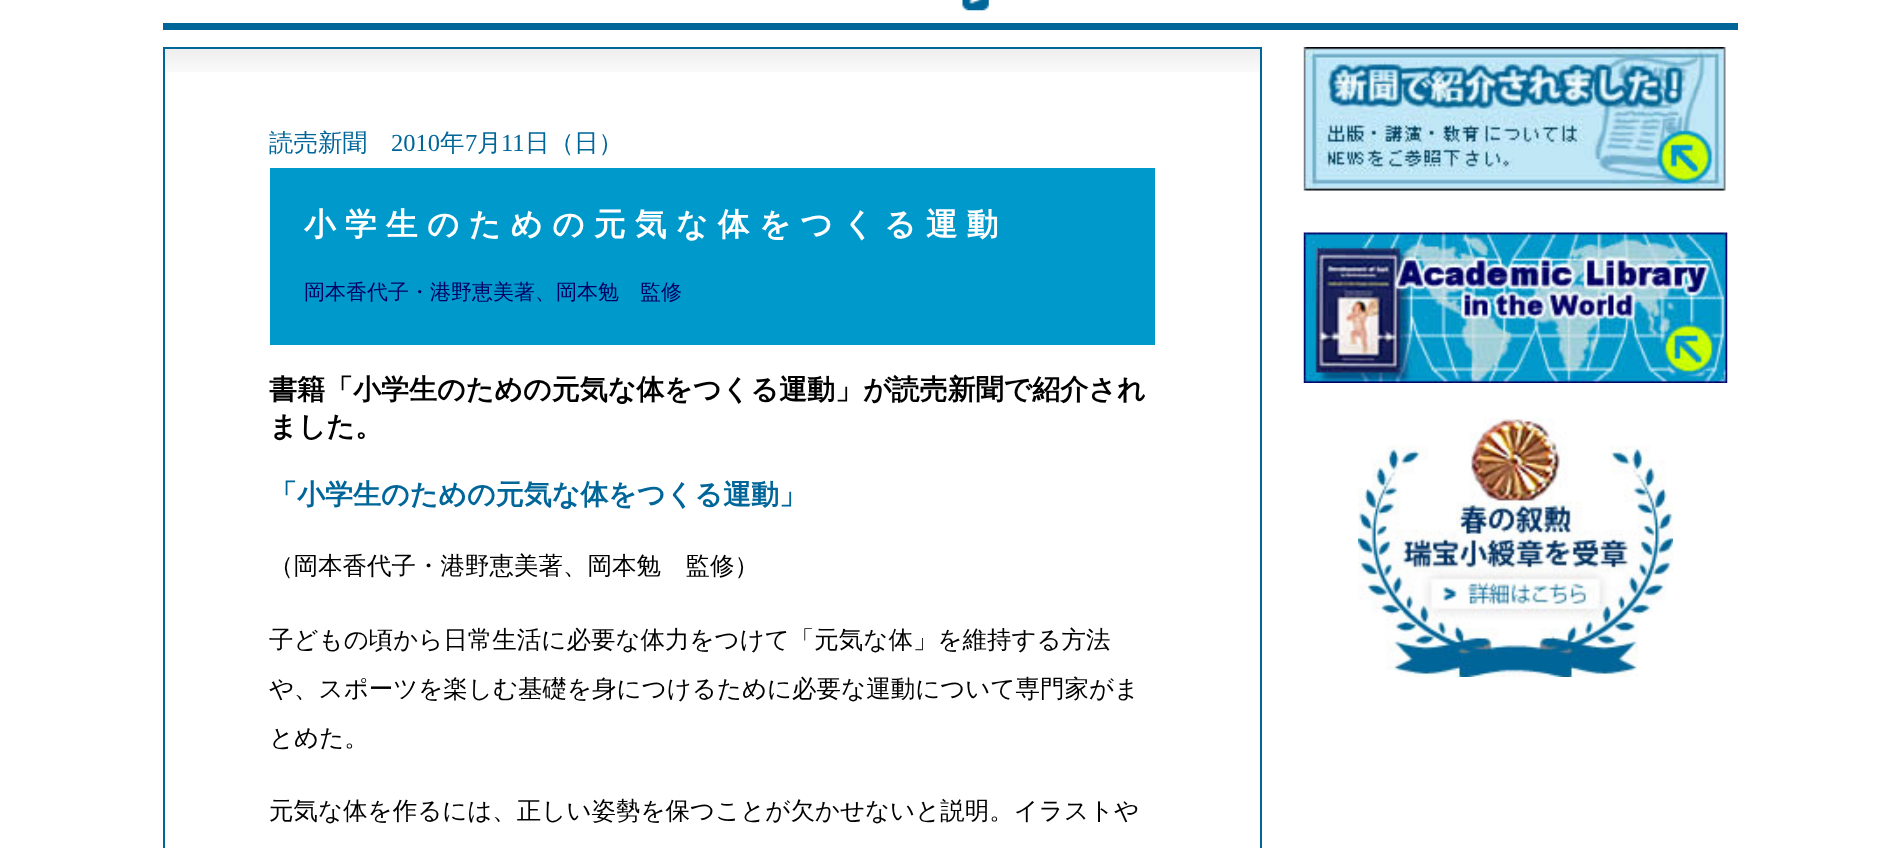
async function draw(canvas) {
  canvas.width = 1898
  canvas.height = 848
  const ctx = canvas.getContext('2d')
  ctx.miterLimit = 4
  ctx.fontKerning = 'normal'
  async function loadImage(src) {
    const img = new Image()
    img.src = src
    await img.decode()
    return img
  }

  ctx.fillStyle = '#fff'
  ctx.fillRect(0, 0, 1898, 848)
  ctx.fillStyle = '#069'
  ctx.fillRect(163, 23, 1575, 7)
  ctx.drawImage(await loadImage('image0.png'), 962, 0, 27, 11)
  ctx.drawImage(await loadImage('image1.png'), 165, 49, 1095, 23)
  ctx.strokeStyle = '#069'
  ctx.lineWidth = 2
  ctx.strokeRect(164, 48, 1097, 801)
  ctx.font = '500 24.5px WenQuanYi Zen Hei'
  ctx.fillText('読売新聞', 269, 151)
  ctx.font = '24.5px Liberation Serif'
  ctx.fillText('2010', 391, 151)
  ctx.font = '500 24.5px WenQuanYi Zen Hei'
  ctx.fillText('年', 440, 151)
  ctx.font = '24.5px Liberation Serif'
  ctx.fillText('7', 465, 151)
  ctx.font = '500 24.5px WenQuanYi Zen Hei'
  ctx.fillText('月', 477, 151)
  ctx.font = '24.5px Liberation Serif'
  ctx.fillText('11', 501, 151)
  ctx.font = '500 24.5px WenQuanYi Zen Hei'
  ctx.fillText('日（日）', 525, 151)
  ctx.fillStyle = '#09c'
  ctx.fillRect(270, 168, 885, 177)
  ctx.letterSpacing = '9.5px'
  ctx.font = 'bold 31.5px WenQuanYi Zen Hei'
  ctx.fillStyle = '#fff'
  ctx.fillText('小学生のための元気な体をつくる運動', 304, 235)
  ctx.letterSpacing = '0px'
  ctx.font = '500 21px WenQuanYi Zen Hei'
  ctx.fillStyle = '#006'
  ctx.fillText('岡本香代子・港野恵美著、岡本勉　監修', 304, 299)
  ctx.font = 'bold 28px WenQuanYi Zen Hei'
  ctx.fillStyle = '#000'
  ctx.fillText('書籍「小学生のための元気な体をつくる運動」が読売新聞で紹介され', 269, 399)
  ctx.fillText('ました。', 269, 436)
  ctx.fillStyle = '#069'
  ctx.fillText('「小学生のための元気な体をつくる運動」', 269, 504)
  ctx.font = '500 24.5px WenQuanYi Zen Hei'
  ctx.fillStyle = '#000'
  ctx.fillText('（岡本香代子・港野恵美著、岡本勉　監修）', 269, 574)
  ctx.fillText('子どもの頃から日常生活に必要な体力をつけて「元気な体」を維持する方法', 269, 648)
  ctx.fillText('や、スポーツを楽しむ基礎を身につけるために必要な運動について専門家がま', 269, 697)
  ctx.fillText('とめた。', 269, 746)
  ctx.fillText('元気な体を作るには、正しい姿勢を保つことが欠かせないと説明。イラストや', 269, 819)
  ctx.drawImage(await loadImage('image2.png'), 1303, 47, 423, 144)
  ctx.drawImage(await loadImage('image3.png'), 1303, 232, 425, 151)
  ctx.drawImage(await loadImage('image4.png'), 1358, 418, 315, 259)
}

draw(document.querySelector('canvas'))
